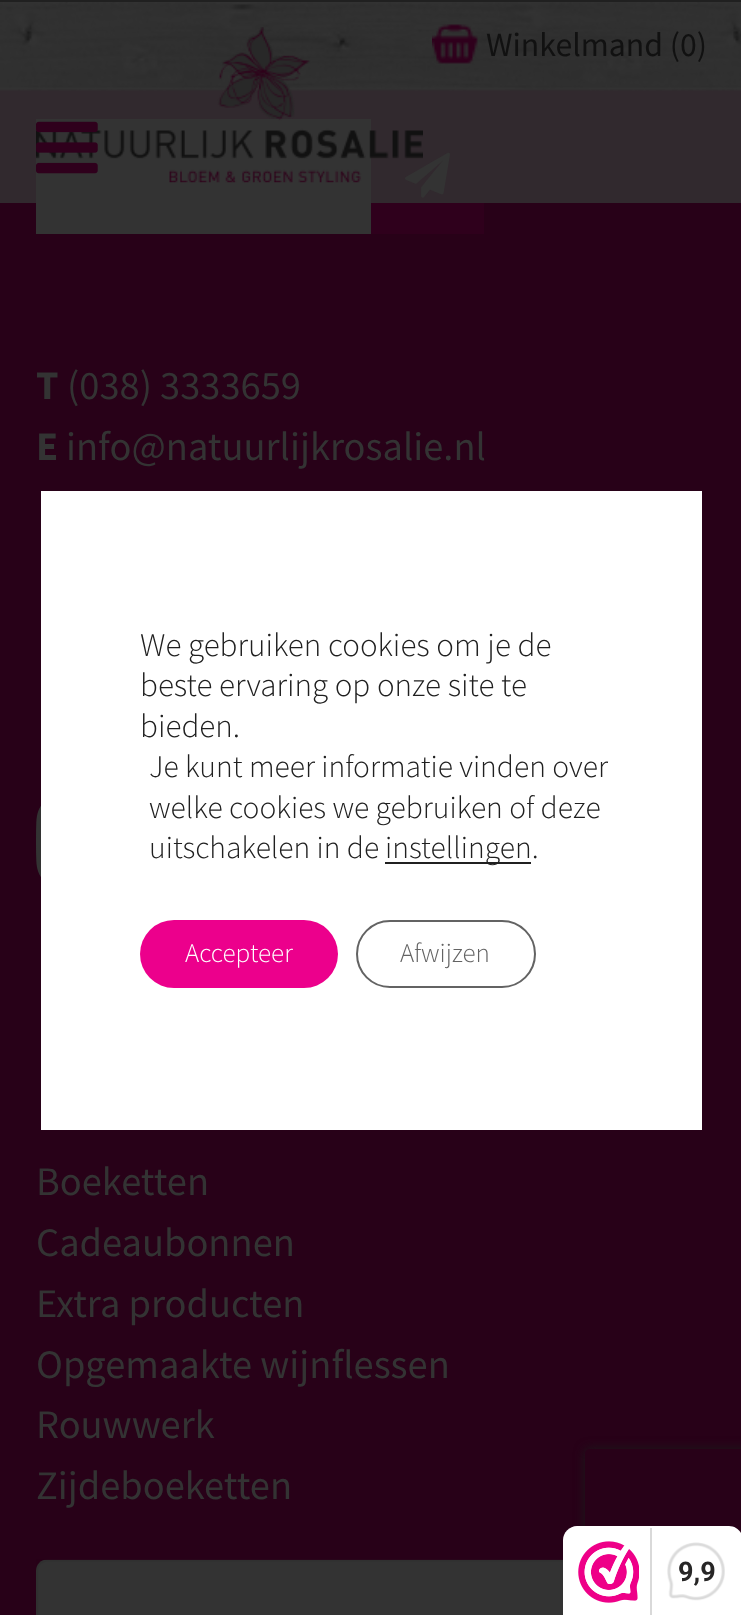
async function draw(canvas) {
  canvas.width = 741
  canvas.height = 1615
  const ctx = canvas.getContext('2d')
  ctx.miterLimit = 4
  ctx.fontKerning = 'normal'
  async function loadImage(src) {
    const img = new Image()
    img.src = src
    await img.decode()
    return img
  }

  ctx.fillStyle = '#280118'
  ctx.fillRect(0, 0, 741, 1615)
  ctx.fillStyle = '#31292e'
  ctx.fillRect(0, 89, 741, 114)
  ctx.drawImage(await loadImage('image0.png'), 0, 2, 741, 89)
  ctx.fillStyle = '#333'
  ctx.fillRect(36, 119, 335, 115)
  ctx.drawImage(await loadImage('image4.png'), 405, 152, 45, 46)
  ctx.drawImage(await loadImage('image1.png'), 36, 27, 387, 156)
  ctx.drawImage(await loadImage('image2.png'), 432, 24, 46, 40)
  ctx.font = '33.75px Source Sans Pro'
  ctx.fillStyle = '#111'
  ctx.fillText('Winkelmand (0)', 486, 56)
  ctx.drawImage(await loadImage('image3.png'), 36, 121, 62, 53)
  ctx.fillStyle = '#2f001c'
  ctx.fillRect(371, 203, 113, 31)
  ctx.font = 'bold 40.5px Source Sans Pro'
  ctx.fillStyle = '#333'
  ctx.fillText('T', 36, 399)
  ctx.font = '40.5px Source Sans Pro'
  ctx.fillText('(038) 3333659', 67, 399)
  ctx.font = 'bold 40.5px Source Sans Pro'
  ctx.fillText('E', 36, 460)
  ctx.font = '40.5px Source Sans Pro'
  ctx.fillText('info@natuurlijkrosalie.nl', 66, 460)
  ctx.drawImage(await loadImage('image5.png'), 36, 806, 5, 71)
  ctx.fillText('Boeketten', 36, 1195)
  ctx.fillText('Cadeaubonnen', 36, 1256)
  ctx.fillText('Extra producten', 36, 1317)
  ctx.fillText('Opgemaakte wijnflessen', 36, 1378)
  ctx.fillText('Rouwwerk', 36, 1438)
  ctx.fillText('Zijdeboeketten', 36, 1499)
  ctx.drawImage(await loadImage('image6.png'), 36, 1559, 527, 56)
  ctx.fillStyle = '#202020'
  ctx.fillRect(0, 0, 741, 2)
  ctx.fillStyle = '#fff'
  ctx.fillRect(41, 491, 661, 639)
  ctx.font = '300 33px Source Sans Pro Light'
  ctx.fillStyle = '#202020'
  ctx.fillText('We gebruiken cookies om je de', 140, 656)
  ctx.fillText('beste ervaring op onze site te', 140, 696)
  ctx.fillText('bieden.', 140, 737)
  ctx.font = '300 31.5px Source Sans Pro Light'
  ctx.fillText('Je kunt meer informatie vinden over', 149, 777)
  ctx.fillText('welke cookies we gebruiken of deze', 149, 818)
  ctx.fillText('uitschakelen in de', 149, 858)
  ctx.fillRect(385, 862, 146, 2)
  ctx.fillText('instellingen.', 385, 858)
  ctx.fillStyle = '#ec008c'
  ctx.beginPath()
  ctx.roundRect(140, 920, 198, 68, 34)
  ctx.fill()
  ctx.font = '300 27px Source Sans Pro Light'
  ctx.fillStyle = '#fff'
  ctx.fillText('Accepteer', 185, 962)
  ctx.beginPath()
  ctx.roundRect(357, 921, 178, 66, 33)
  ctx.strokeStyle = '#636363'
  ctx.lineWidth = 2
  ctx.stroke()
  ctx.fillStyle = '#636363'
  ctx.fillText('Afwijzen', 400, 962)
  ctx.save()
  ctx.beginPath()
  ctx.moveTo(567, 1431)
  ctx.lineTo(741, 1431)
  ctx.lineTo(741, 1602)
  ctx.lineTo(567, 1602)
  ctx.closePath()
  ctx.moveTo(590, 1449)
  ctx.lineTo(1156, 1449)
  ctx.bezierCurveTo(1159, 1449, 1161, 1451, 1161, 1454)
  ctx.lineTo(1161, 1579)
  ctx.bezierCurveTo(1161, 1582, 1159, 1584, 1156, 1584)
  ctx.lineTo(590, 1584)
  ctx.bezierCurveTo(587, 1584, 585, 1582, 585, 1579)
  ctx.lineTo(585, 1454)
  ctx.bezierCurveTo(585, 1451, 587, 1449, 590, 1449)
  ctx.closePath()
  ctx.clip('evenodd')
  ctx.fillStyle = '#1a1a1a'
  ctx.filter = 'blur(5.5px)'
  ctx.beginPath()
  ctx.roundRect(585, 1449, 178, 135, 5)
  ctx.fill()
  ctx.filter = 'none'
  ctx.restore()
  ctx.fillStyle = '#fff'
  ctx.beginPath()
  ctx.moveTo(577, 1526)
  ctx.lineTo(729, 1526)
  ctx.bezierCurveTo(736.5, 1526, 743, 1532.5, 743, 1540)
  ctx.lineTo(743, 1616)
  ctx.lineTo(563, 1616)
  ctx.lineTo(563, 1540)
  ctx.bezierCurveTo(563, 1532.5, 569.5, 1526, 577, 1526)
  ctx.closePath()
  ctx.fill()
  ctx.drawImage(await loadImage('image7.png'), 578, 1541, 61, 62)
  ctx.fillStyle = '#d9d9d9'
  ctx.fillRect(650, 1528, 2, 87)
  ctx.drawImage(await loadImage('image8.png'), 667, 1542, 58, 59)
  ctx.font = 'bold 27px Roboto'
  ctx.fillStyle = '#272626'
  ctx.fillText('9,9', 678, 1581)
}

draw(document.querySelector('canvas'))
